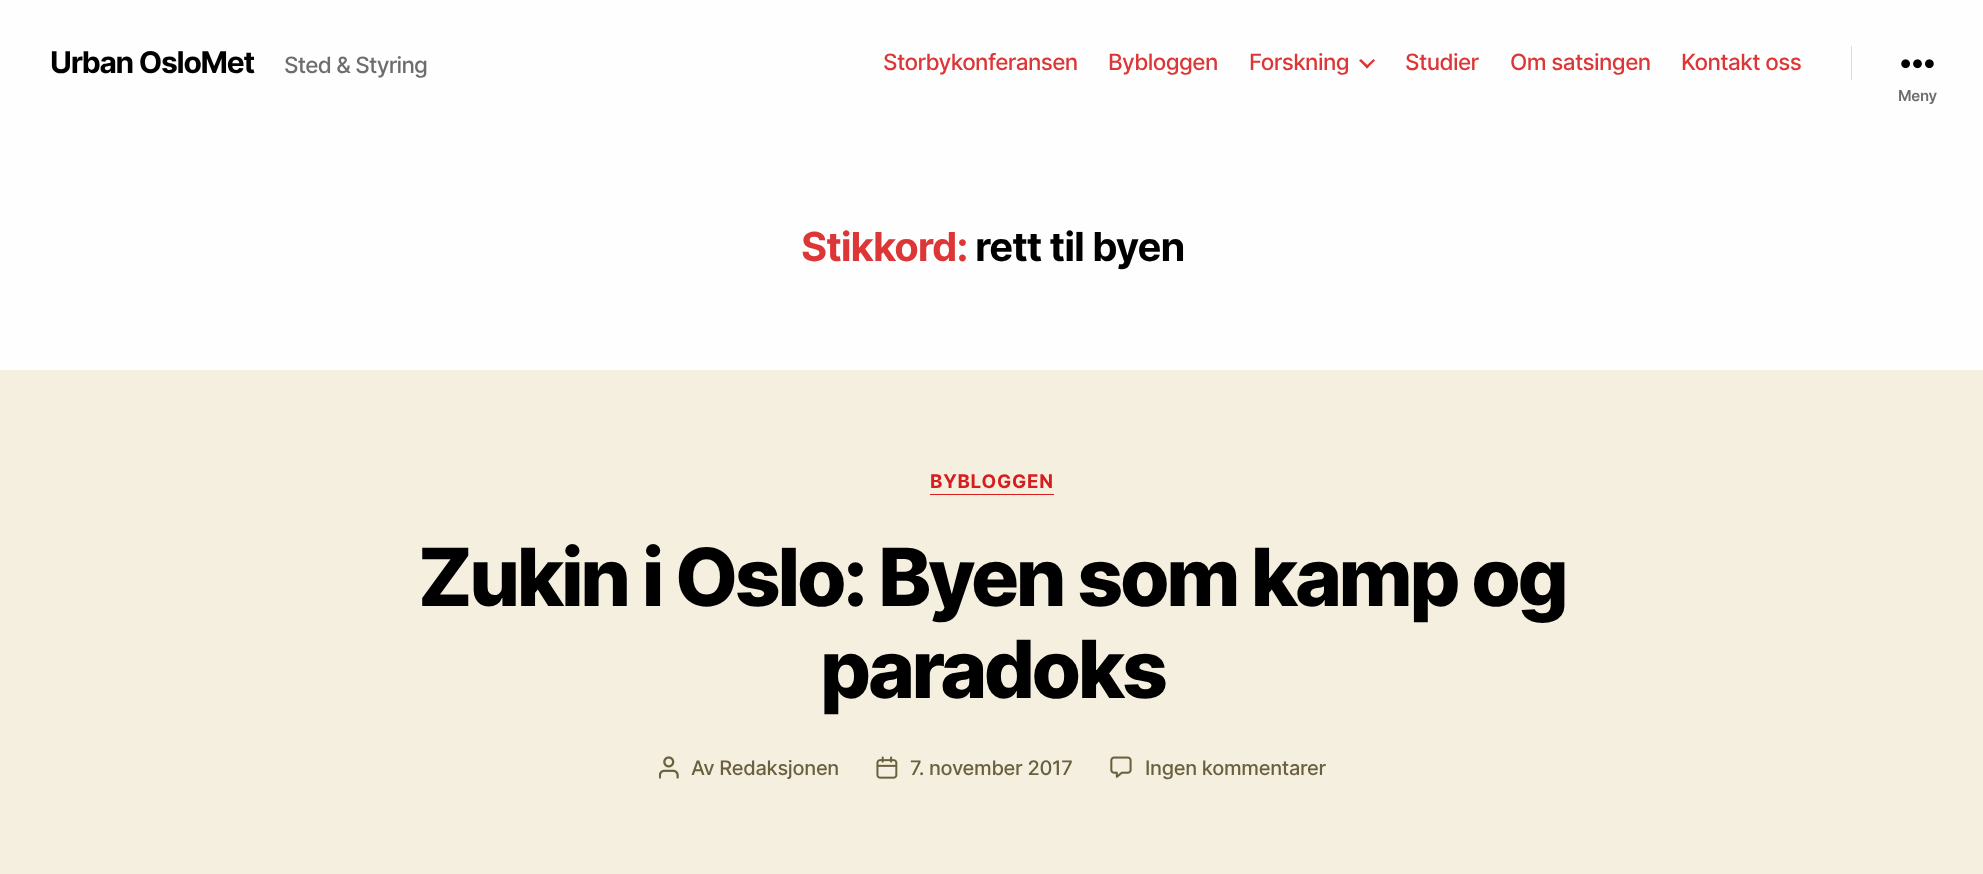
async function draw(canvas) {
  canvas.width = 1983
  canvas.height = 874
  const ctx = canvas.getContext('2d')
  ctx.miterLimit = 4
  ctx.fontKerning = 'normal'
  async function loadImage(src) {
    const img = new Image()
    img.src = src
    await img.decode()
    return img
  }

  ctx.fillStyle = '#f5efe0'
  ctx.fillRect(0, 0, 1983, 874)
  ctx.fillStyle = '#fefefe'
  ctx.fillRect(0, 0, 1983, 370)
  ctx.letterSpacing = '-1.25px'
  ctx.font = 'bold 30px Inter'
  ctx.fillStyle = '#000'
  ctx.fillText('Urban OsloMet', 50, 73)
  ctx.letterSpacing = '-0.75px'
  ctx.font = '500 22.5px Inter'
  ctx.fillStyle = '#6d6d6d'
  ctx.fillText('Sted & Styring', 284, 73)
  ctx.letterSpacing = '-0.6px'
  ctx.fillStyle = '#dc3636'
  ctx.fillText('Storbykonferansen', 883, 70)
  ctx.fillText('Bybloggen', 1108, 70)
  ctx.fillText('Forskning', 1249, 70)
  ctx.beginPath()
  ctx.moveTo(1359, 60.5)
  ctx.lineTo(1361, 59)
  ctx.lineTo(1369, 66.5)
  ctx.lineTo(1367, 68.5)
  ctx.closePath()
  ctx.fill()
  ctx.beginPath()
  ctx.moveTo(1365.5, 66.5)
  ctx.lineTo(1373.5, 59)
  ctx.lineTo(1375, 60.5)
  ctx.lineTo(1367, 68.5)
  ctx.closePath()
  ctx.fill()
  ctx.fillText('Studier', 1405, 70)
  ctx.fillText('Om satsingen', 1510, 70)
  ctx.fillText('Kontakt oss', 1681, 70)
  ctx.fillStyle = '#dbdbdb'
  ctx.fillRect(1851, 46, 1, 34)
  ctx.drawImage(await loadImage('image0.png'), 1901, 59, 33, 10)
  ctx.letterSpacing = '-0.3px'
  ctx.font = '600 15px Inter'
  ctx.fillStyle = '#6d6d6d'
  ctx.fillText('Meny', 1898, 101)
  ctx.letterSpacing = '-1px'
  ctx.font = 'bold 40px Inter'
  ctx.fillStyle = '#dc3636'
  ctx.fillText('Stikkord:', 801, 261)
  ctx.fillStyle = '#000'
  ctx.fillText('rett til byen', 975, 261)
  ctx.fillStyle = '#d61e1e'
  ctx.fillRect(930, 494, 124, 1)
  ctx.letterSpacing = '0.75px'
  ctx.font = 'bold 18.75px Inter'
  ctx.fillText('BYBLOGGEN', 930, 488)
  ctx.letterSpacing = '-3.3px'
  ctx.font = '800 80px Inter'
  ctx.fillStyle = '#000'
  ctx.fillText('Zukin i Oslo: Byen som kamp og', 418, 606)
  ctx.fillText('paradoks', 820, 698)
  ctx.drawImage(await loadImage('image1.png'), 659, 756, 20, 23)
  ctx.letterSpacing = '-0.3px'
  ctx.font = '500 20px Inter'
  ctx.fillStyle = '#69603e'
  ctx.fillText('Av Redaksjonen', 691, 775)
  ctx.drawImage(await loadImage('image2.png'), 876, 756, 22, 23)
  ctx.fillText('7. november 2017', 910, 775)
  ctx.drawImage(await loadImage('image3.png'), 1110, 756, 22, 22)
  ctx.fillText('Ingen kommentarer', 1145, 775)
}

draw(document.querySelector('canvas'))
